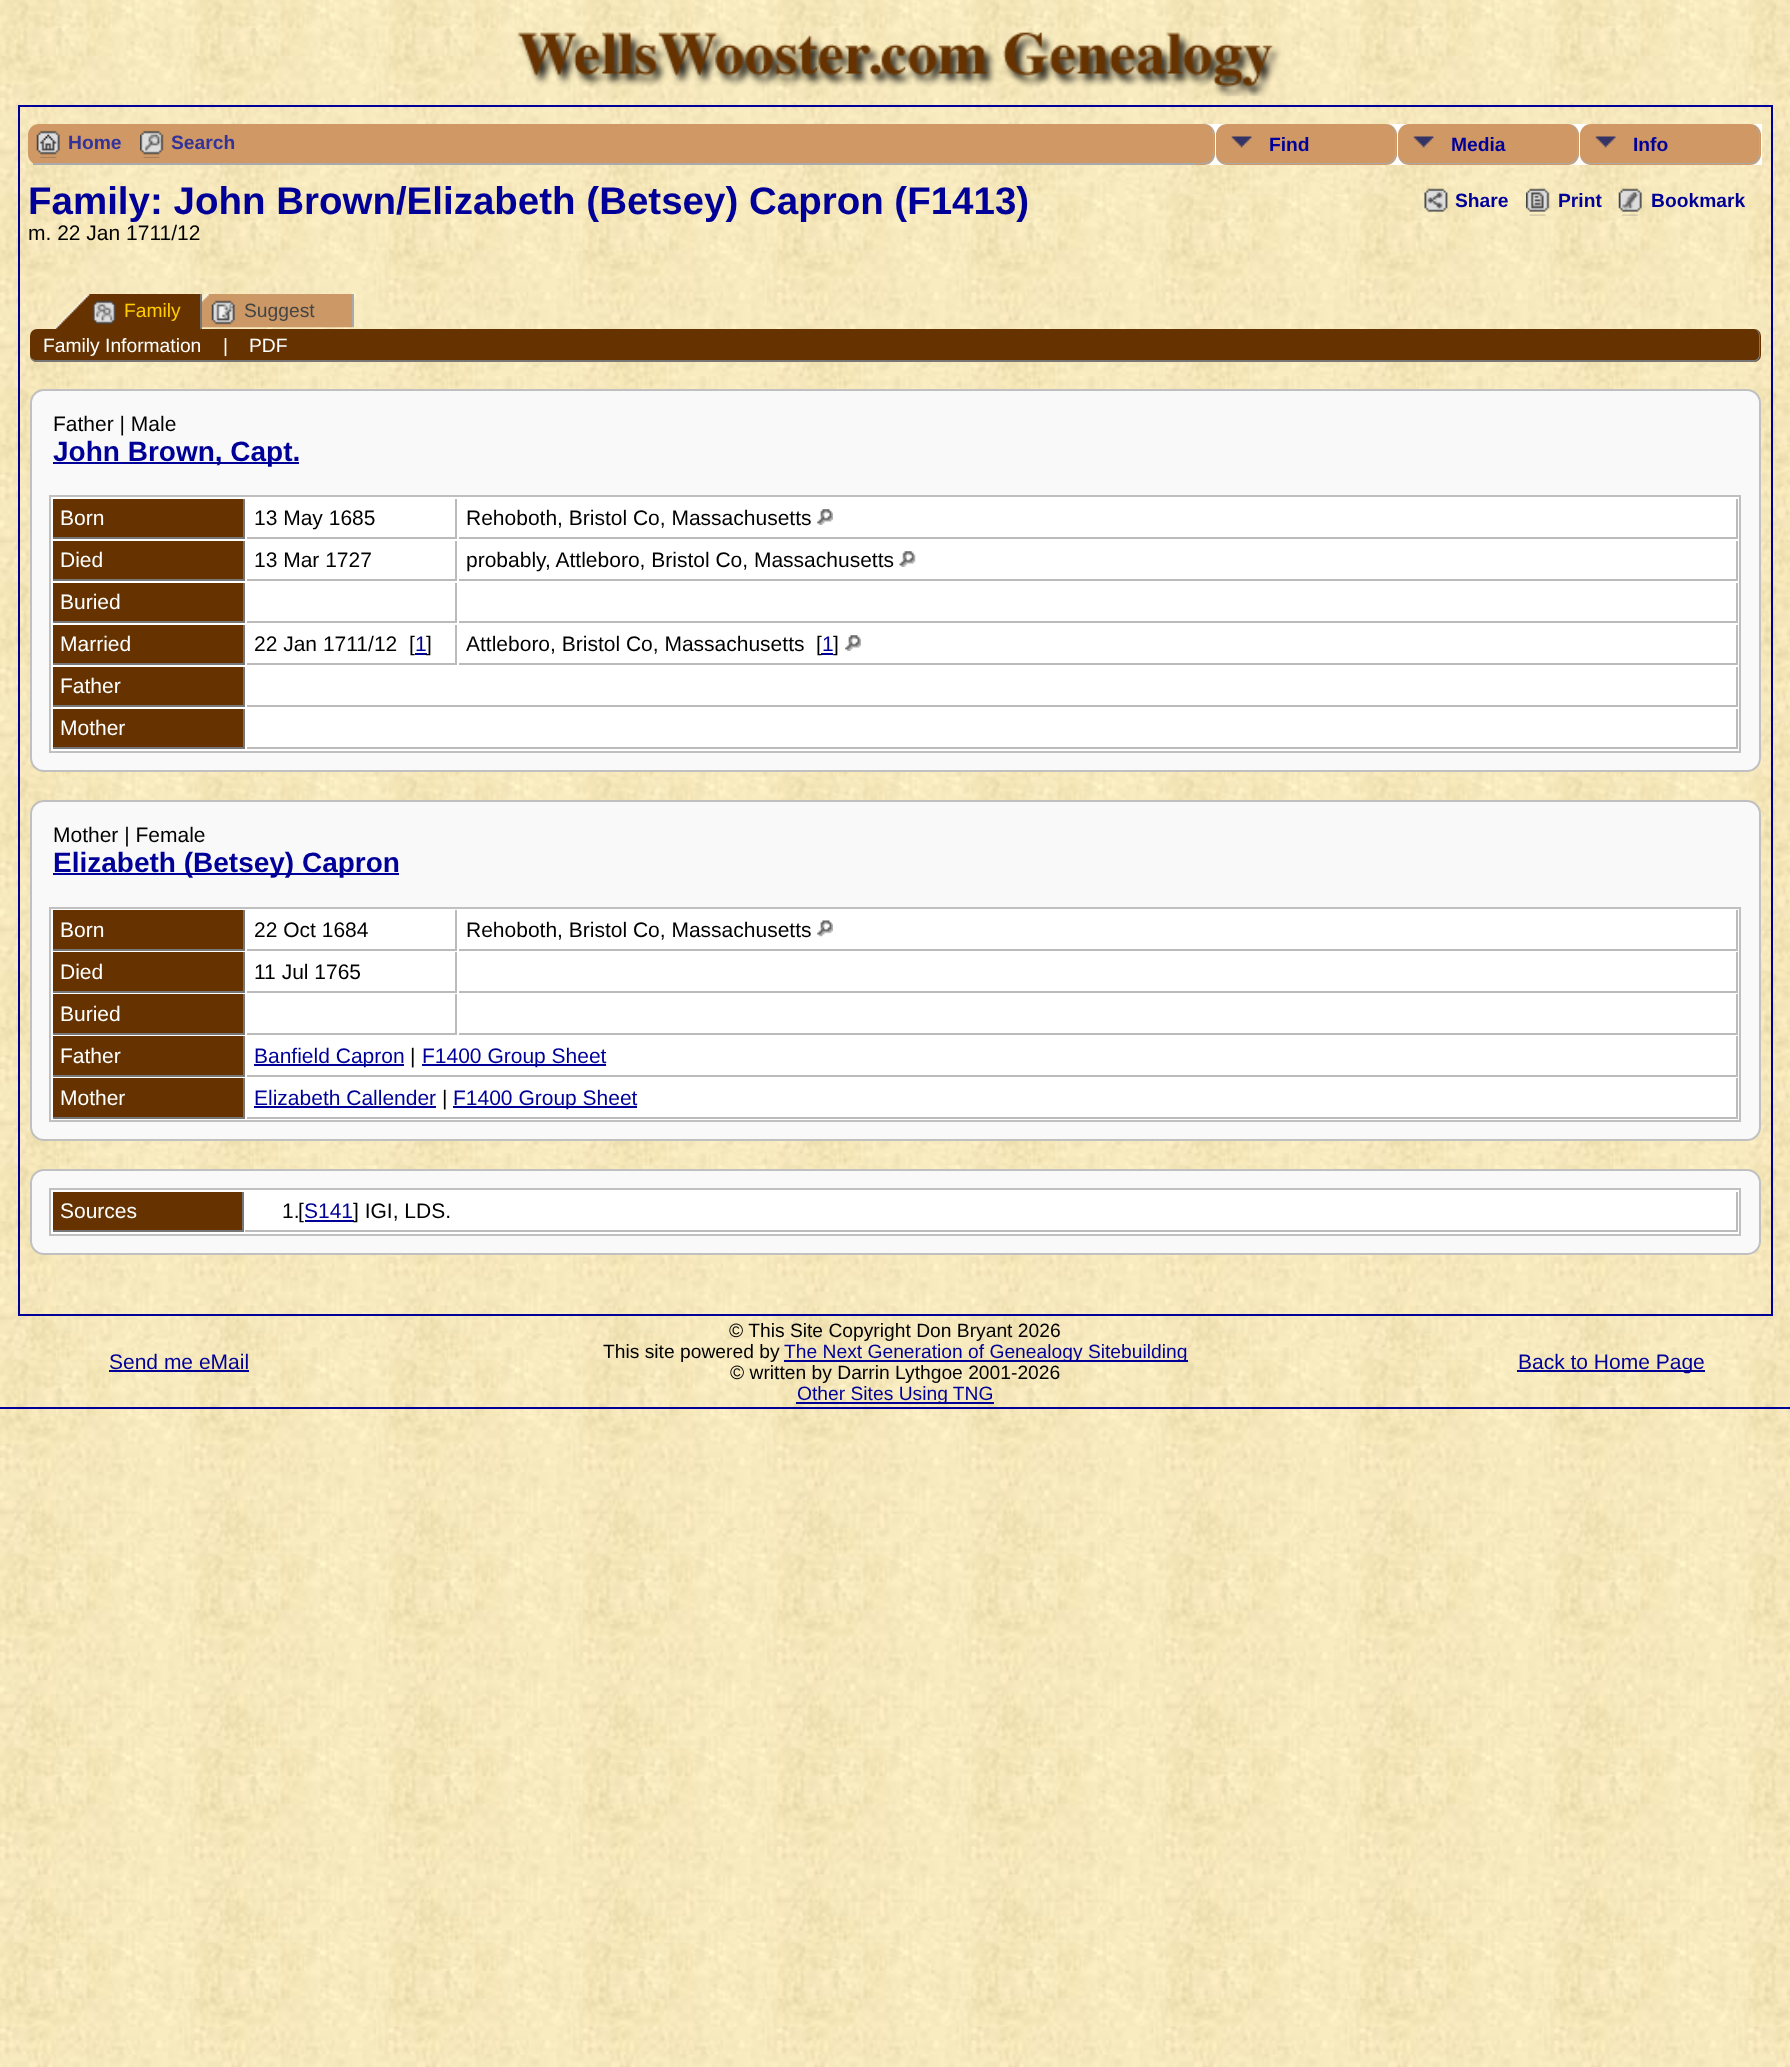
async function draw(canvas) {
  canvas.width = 1790
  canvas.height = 2067
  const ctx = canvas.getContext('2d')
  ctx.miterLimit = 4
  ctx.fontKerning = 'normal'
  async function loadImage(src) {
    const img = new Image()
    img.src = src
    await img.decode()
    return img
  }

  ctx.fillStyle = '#fff'
  ctx.fillRect(0, 0, 1790, 2067)
  ctx.drawImage(await loadImage('image0.png'), 0, 0, 1790, 2067)
  ctx.drawImage(await loadImage('image1.png'), 517, 32, 764, 65)
  ctx.strokeStyle = '#009'
  ctx.lineWidth = 2
  ctx.strokeRect(19, 106, 1753, 1209)
  ctx.drawImage(await loadImage('image2.png'), 28, 124, 11, 41)
  ctx.fillStyle = '#cf9864'
  ctx.beginPath()
  ctx.roundRect(28, 124, 1734, 41, 11)
  ctx.fill()
  ctx.fillStyle = '#aaa'
  ctx.fillRect(33, 163, 1162, 2)
  ctx.drawImage(await loadImage('image3.png'), 36, 130, 24, 28)
  ctx.font = 'bold 19.25px Liberation Sans'
  ctx.fillStyle = '#339'
  ctx.fillText('Home', 68, 149)
  ctx.drawImage(await loadImage('image4.png'), 140, 130, 24, 28)
  ctx.fillText('Search', 171, 149)
  ctx.fillStyle = '#fff'
  ctx.fillRect(1204, 124, 558, 41)
  ctx.fillStyle = '#cf9864'
  ctx.beginPath()
  ctx.roundRect(1195, 124, 20, 41, [0, 11, 11, 0])
  ctx.fill()
  ctx.fillStyle = '#aaa'
  ctx.beginPath()
  ctx.moveTo(1195, 124)
  ctx.bezierCurveTo(1203, 124, 1212, 123, 1214, 133)
  ctx.lineTo(1214, 156)
  ctx.bezierCurveTo(1212, 166, 1203, 164, 1195, 164)
  ctx.closePath()
  ctx.moveTo(1195, 124)
  ctx.lineTo(1206, 124)
  ctx.bezierCurveTo(1214, 127, 1213, 138, 1213, 144)
  ctx.bezierCurveTo(1213, 162, 1212, 163, 1195, 163)
  ctx.closePath()
  ctx.fill('evenodd')
  ctx.fillStyle = '#cf9864'
  ctx.beginPath()
  ctx.roundRect(1216, 124, 181, 41, 11)
  ctx.fill()
  ctx.drawImage(await loadImage('image5.png'), 1231, 136, 21, 12)
  ctx.fillStyle = '#aaa'
  ctx.beginPath()
  ctx.moveTo(1227, 124)
  ctx.lineTo(1386, 124)
  ctx.bezierCurveTo(1392, 124, 1396, 129, 1396, 135)
  ctx.lineTo(1396, 154)
  ctx.bezierCurveTo(1396, 160, 1392, 164, 1386, 164)
  ctx.lineTo(1227, 164)
  ctx.bezierCurveTo(1221, 164, 1216, 160, 1216, 154)
  ctx.lineTo(1216, 135)
  ctx.bezierCurveTo(1216, 129, 1221, 124, 1227, 124)
  ctx.closePath()
  ctx.moveTo(1227, 124)
  ctx.lineTo(1386, 124)
  ctx.bezierCurveTo(1391, 124, 1395, 129, 1395, 135)
  ctx.lineTo(1395, 154)
  ctx.bezierCurveTo(1395, 159, 1391, 163, 1386, 163)
  ctx.lineTo(1227, 163)
  ctx.bezierCurveTo(1221, 163, 1216, 159, 1216, 154)
  ctx.lineTo(1216, 135)
  ctx.bezierCurveTo(1216, 129, 1221, 124, 1227, 124)
  ctx.closePath()
  ctx.fill('evenodd')
  ctx.fillStyle = '#009'
  ctx.fillText('Find', 1269, 151)
  ctx.fillStyle = '#cf9864'
  ctx.beginPath()
  ctx.roundRect(1398, 124, 181, 41, 11)
  ctx.fill()
  ctx.drawImage(await loadImage('image6.png'), 1413, 136, 21, 12)
  ctx.fillStyle = '#aaa'
  ctx.beginPath()
  ctx.moveTo(1409, 124)
  ctx.lineTo(1568, 124)
  ctx.bezierCurveTo(1574, 124, 1578, 129, 1578, 135)
  ctx.lineTo(1578, 154)
  ctx.bezierCurveTo(1578, 160, 1574, 164, 1568, 164)
  ctx.lineTo(1409, 164)
  ctx.bezierCurveTo(1403, 164, 1398, 160, 1398, 154)
  ctx.lineTo(1398, 135)
  ctx.bezierCurveTo(1398, 129, 1403, 124, 1409, 124)
  ctx.closePath()
  ctx.moveTo(1409, 124)
  ctx.lineTo(1568, 124)
  ctx.bezierCurveTo(1573, 124, 1577, 129, 1577, 135)
  ctx.lineTo(1577, 154)
  ctx.bezierCurveTo(1577, 159, 1573, 163, 1568, 163)
  ctx.lineTo(1409, 163)
  ctx.bezierCurveTo(1403, 163, 1398, 159, 1398, 154)
  ctx.lineTo(1398, 135)
  ctx.bezierCurveTo(1398, 129, 1403, 124, 1409, 124)
  ctx.closePath()
  ctx.fill('evenodd')
  ctx.fillStyle = '#009'
  ctx.fillText('Media', 1451, 151)
  ctx.fillStyle = '#cf9864'
  ctx.beginPath()
  ctx.roundRect(1580, 124, 181, 41, 11)
  ctx.fill()
  ctx.drawImage(await loadImage('image6.png'), 1595, 136, 21, 12)
  ctx.fillStyle = '#aaa'
  ctx.beginPath()
  ctx.moveTo(1591, 124)
  ctx.lineTo(1750, 124)
  ctx.bezierCurveTo(1756, 124, 1760, 129, 1760, 135)
  ctx.lineTo(1760, 154)
  ctx.bezierCurveTo(1760, 160, 1756, 164, 1750, 164)
  ctx.lineTo(1591, 164)
  ctx.bezierCurveTo(1585, 164, 1580, 160, 1580, 154)
  ctx.lineTo(1580, 135)
  ctx.bezierCurveTo(1580, 129, 1585, 124, 1591, 124)
  ctx.closePath()
  ctx.moveTo(1591, 124)
  ctx.lineTo(1750, 124)
  ctx.bezierCurveTo(1755, 124, 1759, 129, 1759, 135)
  ctx.lineTo(1759, 154)
  ctx.bezierCurveTo(1759, 159, 1755, 163, 1750, 163)
  ctx.lineTo(1591, 163)
  ctx.bezierCurveTo(1585, 163, 1580, 159, 1580, 154)
  ctx.lineTo(1580, 135)
  ctx.bezierCurveTo(1580, 129, 1585, 124, 1591, 124)
  ctx.closePath()
  ctx.fill('evenodd')
  ctx.fillStyle = '#009'
  ctx.fillText('Info', 1633, 151)
  ctx.font = 'bold 38.5px Liberation Sans'
  ctx.fillText('Family: John Brown/Elizabeth (Betsey) Capron (F1413)', 28, 214)
  ctx.drawImage(await loadImage('image7.png'), 1424, 188, 24, 24)
  ctx.font = 'bold 19.25px Liberation Sans'
  ctx.fillText('Share', 1455, 207)
  ctx.drawImage(await loadImage('image8.png'), 1526, 188, 24, 28)
  ctx.fillText('Print', 1558, 207)
  ctx.drawImage(await loadImage('image9.png'), 1618, 188, 24, 28)
  ctx.fillText('Bookmark', 1651, 207)
  ctx.font = '21px Liberation Sans'
  ctx.fillStyle = '#000'
  ctx.fillText('m. 22 Jan 1711/12', 28, 240)
  ctx.drawImage(await loadImage('image10.png'), 54, 294, 146, 35)
  ctx.fillStyle = '#777'
  ctx.fillRect(200, 294, 2, 35)
  ctx.drawImage(await loadImage('image11.png'), 92, 300, 24, 25)
  ctx.font = '19.25px Liberation Sans'
  ctx.fillStyle = '#fc0'
  ctx.fillText('Family', 124, 317)
  ctx.drawImage(await loadImage('image12.png'), 202, 294, 152, 34)
  ctx.fillStyle = '#aaa'
  ctx.fillRect(352, 294, 2, 33)
  ctx.drawImage(await loadImage('image13.png'), 211, 300, 24, 25)
  ctx.fillStyle = '#444'
  ctx.fillText('Suggest', 244, 317)
  ctx.fillStyle = '#630'
  ctx.beginPath()
  ctx.roundRect(30, 329, 1731, 33, 7)
  ctx.fill()
  ctx.fillStyle = '#777'
  ctx.beginPath()
  ctx.moveTo(37, 329)
  ctx.lineTo(1754, 329)
  ctx.bezierCurveTo(1757, 329, 1760, 332, 1760, 336)
  ctx.lineTo(1760, 355)
  ctx.bezierCurveTo(1760, 359, 1757, 362, 1754, 362)
  ctx.lineTo(37, 362)
  ctx.bezierCurveTo(33, 362, 30, 359, 30, 355)
  ctx.lineTo(30, 336)
  ctx.bezierCurveTo(30, 332, 33, 329, 37, 329)
  ctx.closePath()
  ctx.moveTo(37, 329)
  ctx.lineTo(1754, 329)
  ctx.bezierCurveTo(1756, 329, 1759, 332, 1759, 336)
  ctx.lineTo(1759, 355)
  ctx.bezierCurveTo(1759, 358, 1756, 360, 1754, 360)
  ctx.lineTo(37, 360)
  ctx.bezierCurveTo(33, 360, 30, 358, 30, 355)
  ctx.lineTo(30, 336)
  ctx.bezierCurveTo(30, 332, 33, 329, 37, 329)
  ctx.closePath()
  ctx.fill('evenodd')
  ctx.fillStyle = '#fff'
  ctx.fillText('Family Information', 43, 352)
  ctx.fillText('|', 223, 352)
  ctx.fillText('PDF', 249, 352)
  ctx.fillStyle = '#f9f9f9'
  ctx.beginPath()
  ctx.roundRect(31, 390, 1729, 381, 13)
  ctx.fill()
  ctx.strokeStyle = '#c0c0c0'
  ctx.stroke()
  ctx.font = '21px Liberation Sans'
  ctx.fillStyle = '#000'
  ctx.fillText('Father | Male', 53, 431)
  ctx.fillStyle = '#009'
  ctx.fillRect(53, 462, 246, 2)
  ctx.font = 'bold 28px Liberation Sans'
  ctx.fillText('John Brown, Capt.', 53, 461)
  ctx.fillStyle = '#fff'
  ctx.beginPath()
  ctx.rect(50, 496, 1690, 256)
  ctx.fill()
  ctx.stroke()
  ctx.fillStyle = '#630'
  ctx.fillRect(53, 499, 190, 38)
  ctx.fillStyle = '#777'
  ctx.fillRect(243, 499, 2, 40)
  ctx.fillRect(53, 537, 192, 2)
  ctx.font = '21px Liberation Sans'
  ctx.fillStyle = '#fff'
  ctx.fillText('Born', 60, 525)
  ctx.fillStyle = '#bbb'
  ctx.fillRect(455, 499, 2, 40)
  ctx.fillRect(247, 537, 210, 2)
  ctx.fillStyle = '#000'
  ctx.fillText('13 May 1685', 254, 525)
  ctx.fillStyle = '#bbb'
  ctx.fillRect(1736, 499, 2, 40)
  ctx.fillRect(459, 537, 1279, 2)
  ctx.fillStyle = '#000'
  ctx.fillText('Rehoboth, Bristol Co, Massachusetts', 466, 525)
  ctx.drawImage(await loadImage('image14.png'), 817, 509, 16, 16)
  ctx.fillStyle = '#630'
  ctx.fillRect(53, 541, 190, 38)
  ctx.fillStyle = '#777'
  ctx.fillRect(243, 541, 2, 40)
  ctx.fillRect(53, 579, 192, 2)
  ctx.fillStyle = '#fff'
  ctx.fillText('Died', 60, 567)
  ctx.fillStyle = '#bbb'
  ctx.fillRect(455, 541, 2, 40)
  ctx.fillRect(247, 579, 210, 2)
  ctx.fillStyle = '#000'
  ctx.fillText('13 Mar 1727', 254, 567)
  ctx.fillStyle = '#bbb'
  ctx.fillRect(1736, 541, 2, 40)
  ctx.fillRect(459, 579, 1279, 2)
  ctx.fillStyle = '#000'
  ctx.fillText('probably, Attleboro, Bristol Co, Massachusetts', 466, 567)
  ctx.drawImage(await loadImage('image15.png'), 899, 551, 17, 16)
  ctx.fillStyle = '#630'
  ctx.fillRect(53, 583, 190, 38)
  ctx.fillStyle = '#777'
  ctx.fillRect(243, 583, 2, 40)
  ctx.fillRect(53, 621, 192, 2)
  ctx.fillStyle = '#fff'
  ctx.fillText('Buried', 60, 609)
  ctx.fillStyle = '#bbb'
  ctx.fillRect(455, 583, 2, 40)
  ctx.fillRect(247, 621, 210, 2)
  ctx.fillRect(1736, 583, 2, 40)
  ctx.fillRect(459, 621, 1279, 2)
  ctx.fillStyle = '#630'
  ctx.fillRect(53, 625, 190, 38)
  ctx.fillStyle = '#777'
  ctx.fillRect(243, 625, 2, 40)
  ctx.fillRect(53, 663, 192, 2)
  ctx.fillStyle = '#fff'
  ctx.fillText('Married', 60, 651)
  ctx.fillStyle = '#bbb'
  ctx.fillRect(455, 625, 2, 40)
  ctx.fillRect(247, 663, 210, 2)
  ctx.fillStyle = '#000'
  ctx.fillText('22 Jan 1711/12', 254, 651)
  ctx.fillText('[', 409, 651)
  ctx.fillStyle = '#009'
  ctx.fillRect(415, 653, 12, 2)
  ctx.fillText('1', 415, 651)
  ctx.fillStyle = '#000'
  ctx.fillText(']', 426, 651)
  ctx.fillStyle = '#bbb'
  ctx.fillRect(1736, 625, 2, 40)
  ctx.fillRect(459, 663, 1279, 2)
  ctx.fillStyle = '#000'
  ctx.fillText('Attleboro, Bristol Co, Massachusetts', 466, 651)
  ctx.fillText('[', 816, 651)
  ctx.fillStyle = '#009'
  ctx.fillRect(821, 653, 12, 2)
  ctx.fillText('1', 822, 651)
  ctx.fillStyle = '#000'
  ctx.fillText(']', 833, 651)
  ctx.drawImage(await loadImage('image14.png'), 845, 635, 16, 16)
  ctx.fillStyle = '#630'
  ctx.fillRect(53, 667, 190, 38)
  ctx.fillStyle = '#777'
  ctx.fillRect(243, 667, 2, 40)
  ctx.fillRect(53, 705, 192, 2)
  ctx.fillStyle = '#fff'
  ctx.fillText('Father', 60, 693)
  ctx.fillStyle = '#bbb'
  ctx.fillRect(1736, 667, 2, 40)
  ctx.fillRect(247, 705, 1491, 2)
  ctx.fillStyle = '#630'
  ctx.fillRect(53, 709, 190, 38)
  ctx.fillStyle = '#777'
  ctx.fillRect(243, 709, 2, 40)
  ctx.fillRect(53, 747, 192, 2)
  ctx.fillStyle = '#fff'
  ctx.fillText('Mother', 60, 735)
  ctx.fillStyle = '#bbb'
  ctx.fillRect(1736, 709, 2, 40)
  ctx.fillRect(247, 747, 1491, 2)
  ctx.fillStyle = '#f9f9f9'
  ctx.beginPath()
  ctx.roundRect(31, 801, 1729, 339, 13)
  ctx.fill()
  ctx.stroke()
  ctx.fillStyle = '#000'
  ctx.fillText('Mother | Female', 53, 842)
  ctx.fillStyle = '#009'
  ctx.fillRect(53, 873, 346, 2)
  ctx.font = 'bold 28px Liberation Sans'
  ctx.fillText('Elizabeth (Betsey) Capron', 53, 872)
  ctx.fillStyle = '#fff'
  ctx.beginPath()
  ctx.rect(50, 908, 1690, 213)
  ctx.fill()
  ctx.stroke()
  ctx.fillStyle = '#630'
  ctx.fillRect(53, 910, 190, 39)
  ctx.fillStyle = '#777'
  ctx.fillRect(243, 910, 2, 40)
  ctx.fillRect(53, 949, 192, 2)
  ctx.font = '21px Liberation Sans'
  ctx.fillStyle = '#fff'
  ctx.fillText('Born', 60, 937)
  ctx.fillStyle = '#bbb'
  ctx.fillRect(455, 910, 2, 40)
  ctx.fillRect(247, 949, 210, 2)
  ctx.fillStyle = '#000'
  ctx.fillText('22 Oct 1684', 254, 937)
  ctx.fillStyle = '#bbb'
  ctx.fillRect(1736, 910, 2, 40)
  ctx.fillRect(459, 949, 1279, 2)
  ctx.fillStyle = '#000'
  ctx.fillText('Rehoboth, Bristol Co, Massachusetts', 466, 937)
  ctx.drawImage(await loadImage('image16.png'), 817, 920, 16, 17)
  ctx.fillStyle = '#630'
  ctx.fillRect(53, 952, 190, 39)
  ctx.fillStyle = '#777'
  ctx.fillRect(243, 952, 2, 40)
  ctx.fillRect(53, 991, 192, 2)
  ctx.fillStyle = '#fff'
  ctx.fillText('Died', 60, 979)
  ctx.fillStyle = '#bbb'
  ctx.fillRect(455, 952, 2, 40)
  ctx.fillRect(247, 991, 210, 2)
  ctx.fillStyle = '#000'
  ctx.fillText('11 Jul 1765', 254, 979)
  ctx.fillStyle = '#bbb'
  ctx.fillRect(1736, 952, 2, 40)
  ctx.fillRect(459, 991, 1279, 2)
  ctx.fillStyle = '#630'
  ctx.fillRect(53, 994, 190, 39)
  ctx.fillStyle = '#777'
  ctx.fillRect(243, 994, 2, 40)
  ctx.fillRect(53, 1033, 192, 2)
  ctx.fillStyle = '#fff'
  ctx.fillText('Buried', 60, 1021)
  ctx.fillStyle = '#bbb'
  ctx.fillRect(455, 994, 2, 40)
  ctx.fillRect(247, 1033, 210, 2)
  ctx.fillRect(1736, 994, 2, 40)
  ctx.fillRect(459, 1033, 1279, 2)
  ctx.fillStyle = '#630'
  ctx.fillRect(53, 1036, 190, 39)
  ctx.fillStyle = '#777'
  ctx.fillRect(243, 1036, 2, 40)
  ctx.fillRect(53, 1075, 192, 2)
  ctx.fillStyle = '#fff'
  ctx.fillText('Father', 60, 1063)
  ctx.fillStyle = '#bbb'
  ctx.fillRect(1736, 1036, 2, 40)
  ctx.fillRect(247, 1075, 1491, 2)
  ctx.fillStyle = '#009'
  ctx.fillRect(254, 1064, 150, 2)
  ctx.fillText('Banfield Capron', 254, 1063)
  ctx.fillStyle = '#000'
  ctx.fillText('|', 410, 1063)
  ctx.fillStyle = '#009'
  ctx.fillRect(422, 1064, 184, 2)
  ctx.fillText('F1400 Group Sheet', 422, 1063)
  ctx.fillStyle = '#630'
  ctx.fillRect(53, 1078, 190, 39)
  ctx.fillStyle = '#777'
  ctx.fillRect(243, 1078, 2, 40)
  ctx.fillRect(53, 1117, 192, 2)
  ctx.fillStyle = '#fff'
  ctx.fillText('Mother', 60, 1105)
  ctx.fillStyle = '#bbb'
  ctx.fillRect(1736, 1078, 2, 40)
  ctx.fillRect(247, 1117, 1491, 2)
  ctx.fillStyle = '#009'
  ctx.fillText('Elizabeth Callender', 254, 1105)
  ctx.fillRect(254, 1106, 182, 2)
  ctx.fillStyle = '#000'
  ctx.fillText('|', 442, 1105)
  ctx.fillStyle = '#009'
  ctx.fillRect(453, 1106, 184, 2)
  ctx.fillText('F1400 Group Sheet', 453, 1105)
  ctx.fillStyle = '#f9f9f9'
  ctx.beginPath()
  ctx.roundRect(31, 1170, 1729, 84, 13)
  ctx.fill()
  ctx.stroke()
  ctx.fillStyle = '#fff'
  ctx.beginPath()
  ctx.rect(50, 1189, 1690, 46)
  ctx.fill()
  ctx.stroke()
  ctx.fillStyle = '#630'
  ctx.fillRect(53, 1192, 189, 38)
  ctx.fillStyle = '#777'
  ctx.fillRect(242, 1192, 2, 40)
  ctx.fillRect(53, 1230, 190, 2)
  ctx.fillStyle = '#fff'
  ctx.fillText('Sources', 60, 1218)
  ctx.fillStyle = '#bbb'
  ctx.fillRect(1736, 1192, 2, 40)
  ctx.fillRect(245, 1230, 1493, 2)
  ctx.fillStyle = '#000'
  ctx.fillText('1.', 282, 1218)
  ctx.fillText('[', 298, 1218)
  ctx.fillStyle = '#009'
  ctx.fillText('S141', 304, 1218)
  ctx.fillRect(305, 1220, 49, 2)
  ctx.fillStyle = '#000'
  ctx.fillText('] IGI, LDS.', 353, 1218)
  ctx.fillStyle = '#009'
  ctx.fillText('Send me eMail', 109, 1369)
  ctx.fillRect(109, 1370, 140, 2)
  ctx.font = '19.25px Liberation Sans'
  ctx.fillStyle = '#000'
  ctx.fillText('© This Site Copyright Don Bryant 2026', 729, 1337)
  ctx.fillText('This site powered by', 603, 1358)
  ctx.fillStyle = '#009'
  ctx.fillRect(784, 1360, 404, 2)
  ctx.fillText('The Next Generation of Genealogy Sitebuilding', 784, 1358)
  ctx.fillStyle = '#000'
  ctx.fillText('© written by Darrin Lythgoe 2001-2026', 730, 1379)
  ctx.fillStyle = '#009'
  ctx.fillRect(796, 1402, 198, 2)
  ctx.fillText('Other Sites Using TNG', 797, 1400)
  ctx.fillRect(1517, 1370, 188, 2)
  ctx.font = '21px Liberation Sans'
  ctx.fillText('Back to Home Page', 1518, 1369)
  ctx.fillRect(0, 1407, 1790, 2)
}

draw(document.querySelector('canvas'))
